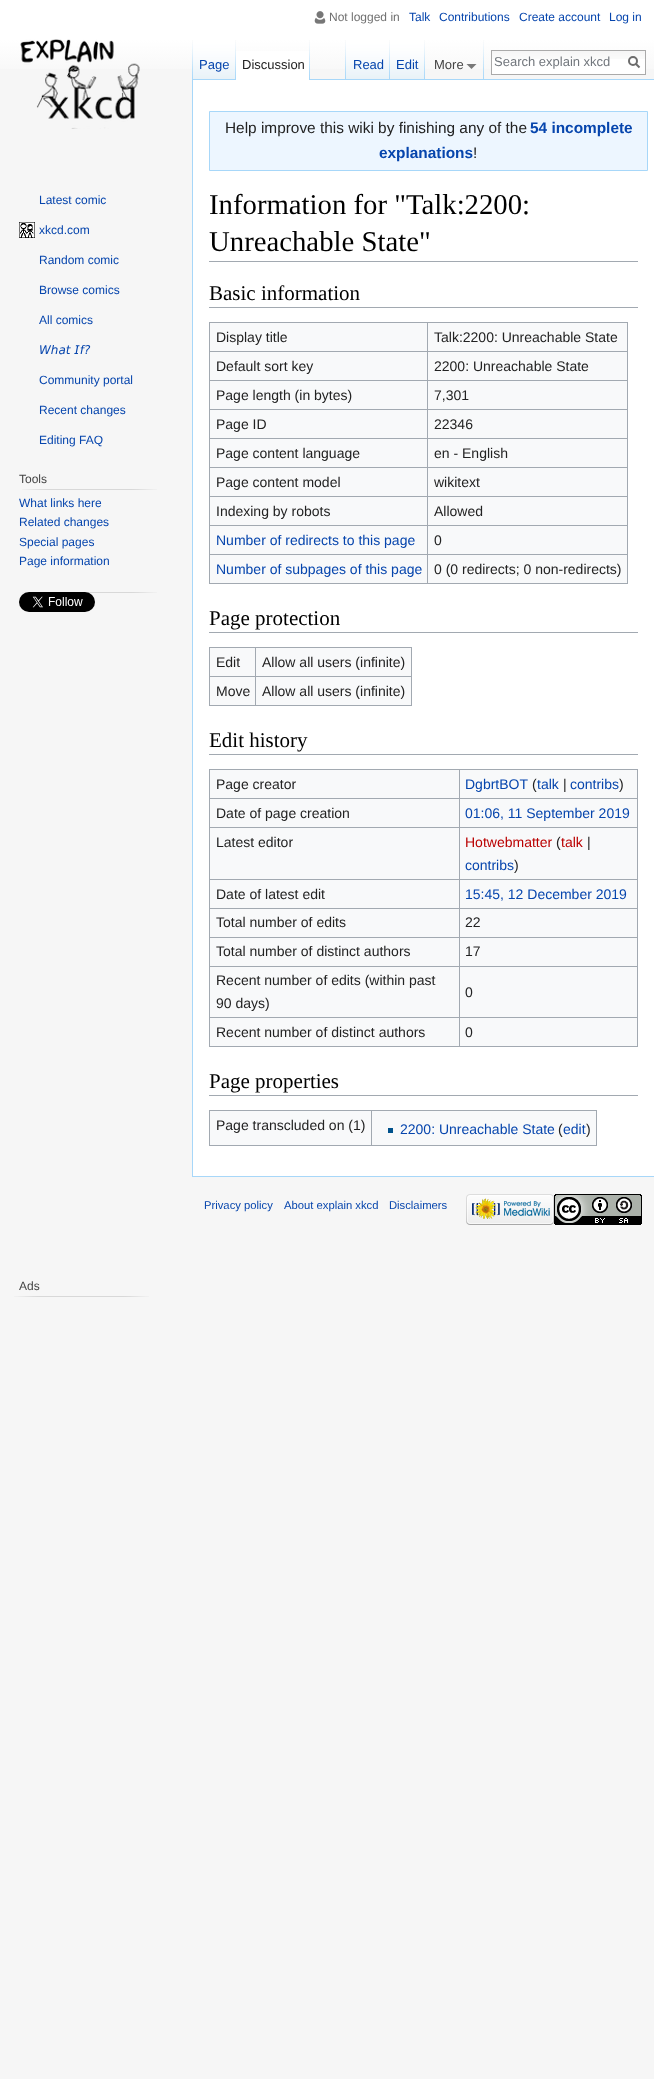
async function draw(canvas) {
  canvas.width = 654
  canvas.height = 2079
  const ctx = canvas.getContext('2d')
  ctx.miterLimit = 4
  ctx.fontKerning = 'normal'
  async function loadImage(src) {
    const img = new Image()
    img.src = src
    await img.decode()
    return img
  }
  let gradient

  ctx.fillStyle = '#f6f6f6'
  ctx.fillRect(0, 0, 654, 2079)
  gradient = ctx.createLinearGradient(327, 0, 327, 80)
  gradient.addColorStop(0.5, '#fff')
  gradient.addColorStop(1, '#f6f6f6')
  ctx.fillStyle = gradient
  ctx.fillRect(0, 0, 654, 69)
  ctx.drawImage(await loadImage('image0.png'), 314, 11, 12, 13)
  ctx.font = '12px Liberation Sans'
  ctx.fillStyle = '#707070'
  ctx.fillText('Not logged in', 329, 21)
  ctx.fillStyle = '#0645ad'
  ctx.fillText('Talk', 409, 21)
  ctx.fillText('Contributions', 439, 21)
  ctx.fillText('Create account', 519, 21)
  ctx.fillText('Log in', 609, 21)
  ctx.drawImage(await loadImage('image1.png'), 192, 40, 1, 39)
  ctx.drawImage(await loadImage('image2.png'), 193, 40, 43, 40)
  ctx.drawImage(await loadImage('image1.png'), 235, 40, 1, 39)
  ctx.font = '13px Liberation Sans'
  ctx.fillText('Page', 199, 69)
  ctx.fillStyle = '#fff'
  ctx.fillRect(236, 51, 73, 29)
  ctx.drawImage(await loadImage('image3.png'), 309, 40, 1, 40)
  ctx.fillStyle = '#222'
  ctx.fillText('Discussion', 242, 69)
  ctx.drawImage(await loadImage('image1.png'), 345, 40, 1, 39)
  ctx.fillStyle = '#a7d7f9'
  ctx.fillRect(310, 79, 344, 1)
  ctx.drawImage(await loadImage('image4.png'), 346, 40, 44, 40)
  ctx.drawImage(await loadImage('image1.png'), 389, 40, 1, 39)
  ctx.fillStyle = '#0645ad'
  ctx.fillText('Read', 353, 69)
  ctx.drawImage(await loadImage('image5.png'), 390, 40, 35, 40)
  ctx.drawImage(await loadImage('image1.png'), 424, 40, 1, 39)
  ctx.fillText('Edit', 396, 69)
  ctx.drawImage(await loadImage('image1.png'), 483, 40, 1, 39)
  ctx.fillStyle = '#797979'
  ctx.beginPath()
  ctx.moveTo(476.5, 64)
  ctx.lineTo(471.5, 69)
  ctx.lineTo(466.5, 64)
  ctx.closePath()
  ctx.fill()
  ctx.fillStyle = '#444'
  ctx.fillText('More', 434, 69)
  ctx.fillStyle = '#fff'
  ctx.fillRect(492, 59, 153, 15)
  ctx.drawImage(await loadImage('image6.png'), 492, 51, 153, 8)
  ctx.strokeStyle = '#aaa'
  ctx.strokeRect(491.5, 50.5, 154, 24)
  ctx.fillStyle = '#72777d'
  ctx.fillText('Search explain xkcd', 494, 66)
  ctx.beginPath()
  ctx.moveTo(639.5, 67.5)
  ctx.lineTo(635.5, 63.5)
  ctx.strokeStyle = '#6c6c6c'
  ctx.lineWidth = 2
  ctx.stroke()
  ctx.beginPath()
  ctx.arc(633, 61, 4, 0, 2 * Math.PI)
  ctx.stroke()
  ctx.drawImage(await loadImage('image7.png'), 20, 39, 120, 90)
  ctx.font = '12px Liberation Sans'
  ctx.fillStyle = '#0645ad'
  ctx.fillText('Latest comic', 39, 204)
  ctx.drawImage(await loadImage('image8.png'), 19, 222, 16, 16)
  ctx.fillText('xkcd.com', 39, 234)
  ctx.fillText('Random comic', 39, 264)
  ctx.fillText('Browse comics', 39, 294)
  ctx.fillText('All comics', 39, 324)
  ctx.font = 'italic 12px DejaVu Sans'
  ctx.fillText('𝘞𝘩𝘢𝘵 𝘐𝘧?', 39, 354)
  ctx.font = '12px Liberation Sans'
  ctx.fillText('Community portal', 39, 384)
  ctx.fillText('Recent changes', 39, 414)
  ctx.fillText('Editing FAQ', 39, 444)
  ctx.fillStyle = '#444'
  ctx.fillText('Tools', 19, 483)
  ctx.drawImage(await loadImage('image9.png'), 22, 489, 135, 1)
  ctx.fillStyle = '#0645ad'
  ctx.fillText('What links here', 19, 507)
  ctx.fillText('Related changes', 19, 526)
  ctx.fillText('Special pages', 19, 546)
  ctx.fillText('Page information', 19, 565)
  ctx.drawImage(await loadImage('image9.png'), 22, 592, 135, 1)
  ctx.drawImage(await loadImage('image10.png'), 19, 592, 76, 20)
  ctx.fillStyle = '#444'
  ctx.fillText('Ads', 19, 1290)
  ctx.drawImage(await loadImage('image9.png'), 14, 1296, 135, 1)
  ctx.fillStyle = '#fff'
  ctx.fillRect(193, 80, 461, 1096)
  ctx.fillStyle = '#a7d7f9'
  ctx.fillRect(192, 1176, 462, 1)
  ctx.fillRect(192, 79, 1, 1098)
  ctx.fillStyle = '#edf6ff'
  ctx.beginPath()
  ctx.rect(209.5, 111.5, 438, 59)
  ctx.fill()
  ctx.strokeStyle = '#a7d7f9'
  ctx.lineWidth = 1
  ctx.stroke()
  ctx.font = '15.4px Liberation Sans'
  ctx.fillStyle = '#222'
  ctx.fillText('Help improve this wiki by finishing any of the', 225, 133)
  ctx.font = 'bold 15.4px Liberation Sans'
  ctx.fillStyle = '#0645ad'
  ctx.fillText('54 incomplete', 530, 133)
  ctx.fillText('explanations', 379, 158)
  ctx.font = '15.4px Liberation Sans'
  ctx.fillStyle = '#222'
  ctx.fillText('!', 473, 158)
  ctx.fillStyle = '#a2a9b1'
  ctx.fillRect(209, 261, 429, 1)
  ctx.font = '28.75px Liberation Serif'
  ctx.fillStyle = '#000'
  ctx.fillText('Information for "Talk:2200:', 209, 214)
  ctx.fillText('Unreachable State"', 209, 251)
  ctx.fillStyle = '#a2a9b1'
  ctx.fillRect(209, 307, 429, 1)
  ctx.font = '21px Liberation Serif'
  ctx.fillStyle = '#000'
  ctx.fillText('Basic information', 209, 300)
  ctx.fillStyle = '#f8f9fa'
  ctx.fillRect(210, 323, 417, 260)
  ctx.fillStyle = '#a2a9b1'
  ctx.fillRect(209, 322, 419, 1)
  ctx.fillRect(627, 322, 1, 262)
  ctx.fillRect(209, 583, 419, 1)
  ctx.fillRect(209, 322, 1, 262)
  ctx.font = '14px Liberation Sans'
  ctx.fillStyle = '#222'
  ctx.fillText('Display title', 216, 342)
  ctx.fillStyle = '#a2a9b1'
  ctx.fillRect(427, 351, 201, 1)
  ctx.fillRect(427, 380, 201, 1)
  ctx.fillRect(427, 409, 201, 1)
  ctx.fillRect(427, 438, 201, 1)
  ctx.fillRect(427, 467, 201, 1)
  ctx.fillRect(427, 496, 201, 1)
  ctx.fillRect(427, 525, 201, 1)
  ctx.fillRect(427, 554, 201, 1)
  ctx.fillRect(427, 554, 1, 30)
  ctx.fillRect(209, 554, 219, 1)
  ctx.fillRect(427, 525, 1, 30)
  ctx.fillRect(209, 525, 219, 1)
  ctx.fillRect(427, 496, 1, 30)
  ctx.fillRect(209, 496, 219, 1)
  ctx.fillRect(427, 467, 1, 30)
  ctx.fillRect(209, 467, 219, 1)
  ctx.fillRect(427, 438, 1, 30)
  ctx.fillRect(209, 438, 219, 1)
  ctx.fillRect(427, 409, 1, 30)
  ctx.fillRect(209, 409, 219, 1)
  ctx.fillRect(427, 380, 1, 30)
  ctx.fillRect(209, 380, 219, 1)
  ctx.fillRect(427, 351, 1, 30)
  ctx.fillRect(209, 351, 219, 1)
  ctx.fillRect(427, 322, 1, 30)
  ctx.fillStyle = '#222'
  ctx.fillText('Talk:2200: Unreachable State', 434, 342)
  ctx.fillText('Default sort key', 216, 371)
  ctx.fillText('2200: Unreachable State', 434, 371)
  ctx.fillText('Page length (in bytes)', 216, 400)
  ctx.fillText('7,301', 434, 400)
  ctx.fillText('Page ID', 216, 429)
  ctx.fillText('22346', 434, 429)
  ctx.fillText('Page content language', 216, 458)
  ctx.fillText('en - English', 434, 458)
  ctx.fillText('Page content model', 216, 487)
  ctx.fillText('wikitext', 434, 487)
  ctx.fillText('Indexing by robots', 216, 516)
  ctx.fillText('Allowed', 434, 516)
  ctx.fillStyle = '#0645ad'
  ctx.fillText('Number of redirects to this page', 216, 545)
  ctx.fillStyle = '#222'
  ctx.fillText('0', 434, 545)
  ctx.fillStyle = '#0645ad'
  ctx.fillText('Number of subpages of this page', 216, 574)
  ctx.fillStyle = '#222'
  ctx.fillText('0 (0 redirects; 0 non-redirects)', 434, 574)
  ctx.fillStyle = '#a2a9b1'
  ctx.fillRect(209, 632, 429, 1)
  ctx.font = '21px Liberation Serif'
  ctx.fillStyle = '#000'
  ctx.fillText('Page protection', 209, 625)
  ctx.fillStyle = '#f8f9fa'
  ctx.fillRect(210, 648, 201, 57)
  ctx.fillStyle = '#a2a9b1'
  ctx.fillRect(209, 647, 203, 1)
  ctx.fillRect(411, 647, 1, 59)
  ctx.fillRect(209, 705, 203, 1)
  ctx.fillRect(209, 647, 1, 59)
  ctx.font = '14px Liberation Sans'
  ctx.fillStyle = '#222'
  ctx.fillText('Edit', 216, 667)
  ctx.fillStyle = '#a2a9b1'
  ctx.fillRect(255, 676, 157, 1)
  ctx.fillRect(255, 676, 1, 30)
  ctx.fillRect(209, 676, 47, 1)
  ctx.fillRect(255, 647, 1, 30)
  ctx.fillStyle = '#222'
  ctx.fillText('Allow all users (infinite)', 262, 667)
  ctx.fillText('Move', 216, 696)
  ctx.fillText('Allow all users (infinite)', 262, 696)
  ctx.fillStyle = '#a2a9b1'
  ctx.fillRect(209, 754, 429, 1)
  ctx.font = '21px Liberation Serif'
  ctx.fillStyle = '#000'
  ctx.fillText('Edit history', 209, 747)
  ctx.fillStyle = '#f8f9fa'
  ctx.fillRect(210, 770, 427, 276)
  ctx.fillStyle = '#a2a9b1'
  ctx.fillRect(209, 769, 429, 1)
  ctx.fillRect(637, 769, 1, 278)
  ctx.fillRect(209, 1046, 429, 1)
  ctx.fillRect(209, 769, 1, 278)
  ctx.font = '14px Liberation Sans'
  ctx.fillStyle = '#222'
  ctx.fillText('Page creator', 216, 789)
  ctx.fillStyle = '#a2a9b1'
  ctx.fillRect(459, 798, 179, 1)
  ctx.fillRect(459, 827, 179, 1)
  ctx.fillRect(459, 879, 179, 1)
  ctx.fillRect(459, 908, 179, 1)
  ctx.fillRect(459, 937, 179, 1)
  ctx.fillRect(459, 966, 179, 1)
  ctx.fillRect(459, 1017, 179, 1)
  ctx.fillRect(459, 1017, 1, 30)
  ctx.fillRect(209, 1017, 251, 1)
  ctx.fillRect(459, 966, 1, 52)
  ctx.fillRect(209, 966, 251, 1)
  ctx.fillRect(459, 937, 1, 30)
  ctx.fillRect(209, 937, 251, 1)
  ctx.fillRect(459, 908, 1, 30)
  ctx.fillRect(209, 908, 251, 1)
  ctx.fillRect(459, 879, 1, 30)
  ctx.fillRect(209, 879, 251, 1)
  ctx.fillRect(459, 827, 1, 53)
  ctx.fillRect(209, 827, 251, 1)
  ctx.fillRect(459, 798, 1, 30)
  ctx.fillRect(209, 798, 251, 1)
  ctx.fillRect(459, 769, 1, 30)
  ctx.fillStyle = '#0645ad'
  ctx.fillText('DgbrtBOT', 465, 789)
  ctx.fillStyle = '#222'
  ctx.fillText('(', 532, 789)
  ctx.fillStyle = '#0645ad'
  ctx.fillText('talk', 537, 789)
  ctx.fillStyle = '#222'
  ctx.fillText('|', 563, 789)
  ctx.fillStyle = '#0645ad'
  ctx.fillText('contribs', 570, 789)
  ctx.fillStyle = '#222'
  ctx.fillText(')', 619, 789)
  ctx.fillText('Date of page creation', 216, 818)
  ctx.fillStyle = '#0645ad'
  ctx.fillText('01:06, 11 September 2019', 465, 818)
  ctx.fillStyle = '#222'
  ctx.fillText('Latest editor', 216, 847)
  ctx.fillStyle = '#ba0000'
  ctx.fillText('Hotwebmatter', 465, 847)
  ctx.fillStyle = '#222'
  ctx.fillText('(', 556, 847)
  ctx.fillStyle = '#ba0000'
  ctx.fillText('talk', 561, 847)
  ctx.fillStyle = '#222'
  ctx.fillText('|', 587, 847)
  ctx.fillStyle = '#0645ad'
  ctx.fillText('contribs', 465, 870)
  ctx.fillStyle = '#222'
  ctx.fillText(')', 514, 870)
  ctx.fillText('Date of latest edit', 216, 899)
  ctx.fillStyle = '#0645ad'
  ctx.fillText('15:45, 12 December 2019', 465, 899)
  ctx.fillStyle = '#222'
  ctx.fillText('Total number of edits', 216, 927)
  ctx.fillText('22', 465, 927)
  ctx.fillText('Total number of distinct authors', 216, 956)
  ctx.fillText('17', 465, 956)
  ctx.fillText('Recent number of edits (within past', 216, 985)
  ctx.fillText('90 days)', 216, 1008)
  ctx.fillText('0', 465, 997)
  ctx.fillText('Recent number of distinct authors', 216, 1037)
  ctx.fillText('0', 465, 1037)
  ctx.fillStyle = '#a2a9b1'
  ctx.fillRect(209, 1095, 429, 1)
  ctx.font = '21px Liberation Serif'
  ctx.fillStyle = '#000'
  ctx.fillText('Page properties', 209, 1088)
  ctx.fillStyle = '#f8f9fa'
  ctx.fillRect(210, 1111, 386, 34)
  ctx.fillStyle = '#a2a9b1'
  ctx.fillRect(209, 1110, 388, 1)
  ctx.fillRect(596, 1110, 1, 36)
  ctx.fillRect(209, 1145, 388, 1)
  ctx.fillRect(209, 1110, 1, 36)
  ctx.font = '14px Liberation Sans'
  ctx.fillStyle = '#222'
  ctx.fillText('Page transcluded on (1)', 216, 1130)
  ctx.fillStyle = '#a2a9b1'
  ctx.fillRect(371, 1110, 1, 36)
  ctx.fillStyle = '#00528c'
  ctx.fillRect(388, 1128, 5, 5)
  ctx.fillStyle = '#0645ad'
  ctx.fillText('2200: Unreachable State', 400, 1134)
  ctx.fillStyle = '#222'
  ctx.fillText('(', 558, 1134)
  ctx.fillStyle = '#0645ad'
  ctx.fillText('edit', 563, 1134)
  ctx.fillStyle = '#222'
  ctx.fillText(')', 586, 1134)
  ctx.font = '11.25px Liberation Sans'
  ctx.fillStyle = '#0645ad'
  ctx.fillText('Privacy policy', 204, 1209)
  ctx.fillText('About explain xkcd', 284, 1209)
  ctx.fillText('Disclaimers', 389, 1209)
  ctx.drawImage(await loadImage('image11.png'), 466, 1194, 88, 31)
  ctx.drawImage(await loadImage('image12.png'), 554, 1194, 88, 31)
}

draw(document.querySelector('canvas'))
